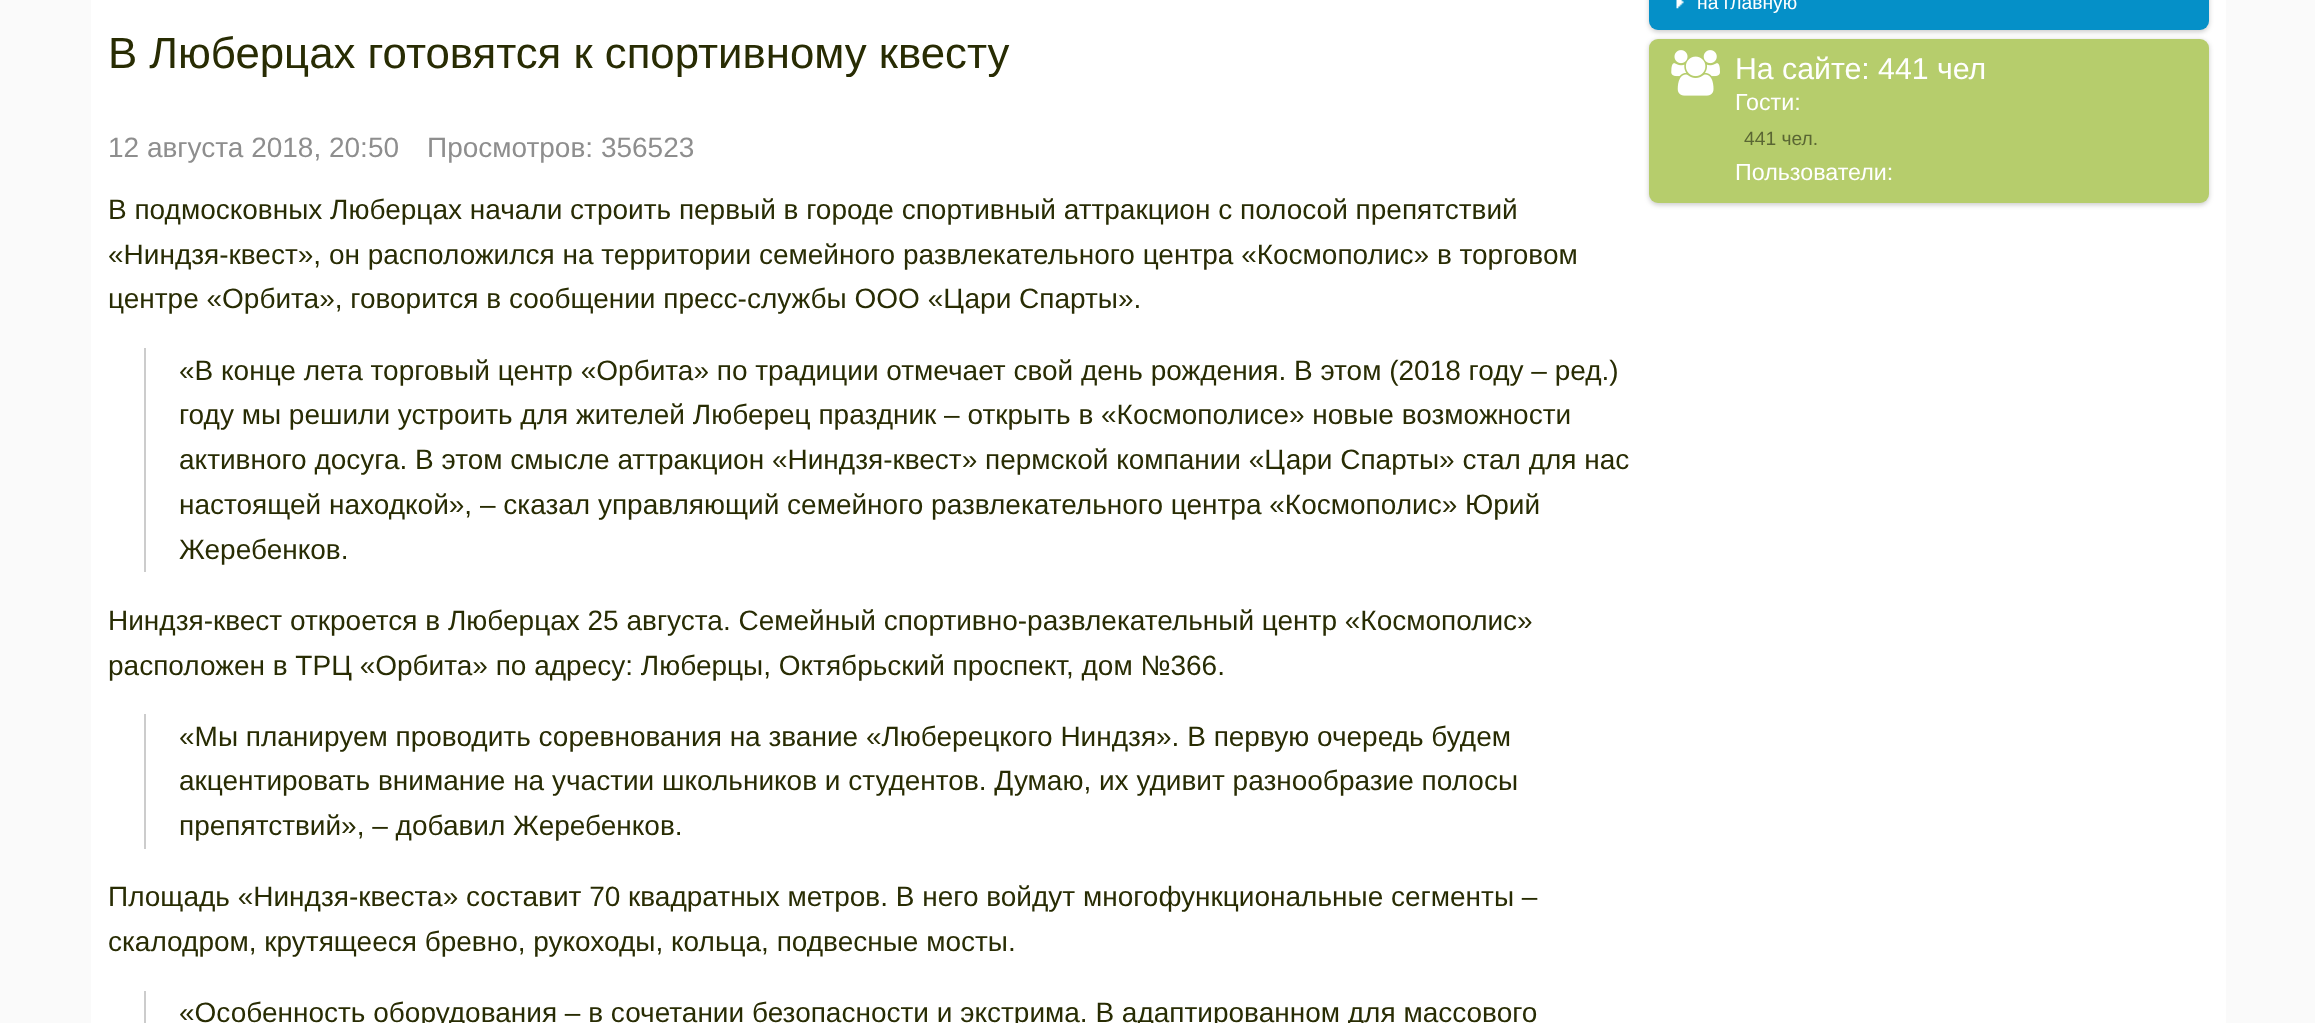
async function draw(canvas) {
  canvas.width = 2315
  canvas.height = 1023
  const ctx = canvas.getContext('2d')
  ctx.miterLimit = 4
  ctx.fontKerning = 'normal'
  async function loadImage(src) {
    const img = new Image()
    img.src = src
    await img.decode()
    return img
  }

  ctx.fillStyle = '#fafafa'
  ctx.fillRect(0, 0, 2315, 1023)
  ctx.fillStyle = '#fff'
  ctx.fillRect(91, 0, 2135, 1023)
  ctx.font = '43.75px Liberation Sans'
  ctx.fillStyle = '#282c03'
  ctx.fillText('В Люберцах готовятся к спортивному квесту', 108, 68)
  ctx.font = '28px Liberation Sans'
  ctx.fillStyle = '#8e8e8e'
  ctx.fillText('12 августа 2018, 20:50', 108, 157)
  ctx.fillText('Просмотров: 356523', 427, 157)
  ctx.fillStyle = '#282c03'
  ctx.fillText('В подмосковных Люберцах начали строить первый в городе спортивный аттракцион с полосой препятствий', 108, 219)
  ctx.fillText('«Ниндзя-квест», он расположился на территории семейного развлекательного центра «Космополис» в торговом', 108, 264)
  ctx.fillText('центре «Орбита», говорится в сообщении пресс-службы ООО «Цари Спарты».', 108, 308)
  ctx.fillStyle = '#ccc'
  ctx.fillRect(144, 348, 2, 224)
  ctx.fillStyle = '#282c03'
  ctx.fillText('«В конце лета торговый центр «Орбита» по традиции отмечает свой день рождения. В этом (2018 году – ред.)', 179, 380)
  ctx.fillText('году мы решили устроить для жителей Люберец праздник – открыть в «Космополисе» новые возможности', 179, 424)
  ctx.fillText('активного досуга. В этом смысле аттракцион «Ниндзя-квест» пермской компании «Цари Спарты» стал для нас', 179, 469)
  ctx.fillText('настоящей находкой», – сказал управляющий семейного развлекательного центра «Космополис» Юрий', 179, 514)
  ctx.fillText('Жеребенков.', 179, 559)
  ctx.fillText('Ниндзя-квест откроется в Люберцах 25 августа. Семейный спортивно-развлекательный центр «Космополис»', 108, 630)
  ctx.fillText('расположен в ТРЦ «Орбита» по адресу: Люберцы, Октябрьский проспект, дом №366.', 108, 675)
  ctx.fillStyle = '#ccc'
  ctx.fillRect(144, 714, 2, 135)
  ctx.fillStyle = '#282c03'
  ctx.fillText('«Мы планируем проводить соревнования на звание «Люберецкого Ниндзя». В первую очередь будем', 179, 746)
  ctx.fillText('акцентировать внимание на участии школьников и студентов. Думаю, их удивит разнообразие полосы', 179, 790)
  ctx.fillText('препятствий», – добавил Жеребенков.', 179, 835)
  ctx.fillText('Площадь «Ниндзя-квеста» составит 70 квадратных метров. В него войдут многофункциональные сегменты –', 108, 906)
  ctx.fillText('скалодром, крутящееся бревно, рукоходы, кольца, подвесные мосты.', 108, 951)
  ctx.fillStyle = '#ccc'
  ctx.fillRect(144, 991, 2, 32)
  ctx.fillStyle = '#282c03'
  ctx.fillText('«Особенность оборудования – в сочетании безопасности и экстрима. В адаптированном для массового', 179, 1022)
  ctx.fillStyle = '#00000033'
  ctx.filter = 'blur(2.5px)'
  ctx.beginPath()
  ctx.roundRect(1649, -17, 560, 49, 9)
  ctx.fill()
  ctx.filter = 'none'
  ctx.fillStyle = '#0590c8'
  ctx.beginPath()
  ctx.roundRect(1649, -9, 560, 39, 9)
  ctx.fill()
  ctx.drawImage(await loadImage('image0.png'), 1676, 0, 8, 9)
  ctx.font = '19.25px Liberation Sans'
  ctx.fillStyle = '#fff'
  ctx.fillText('на главную', 1697, 9)
  ctx.fillStyle = '#00000033'
  ctx.filter = 'blur(2.5px)'
  ctx.beginPath()
  ctx.roundRect(1649, 40, 560, 165, 9)
  ctx.fill()
  ctx.filter = 'none'
  ctx.fillStyle = '#b6cd6c'
  ctx.beginPath()
  ctx.roundRect(1649, 39, 560, 164, 9)
  ctx.fill()
  ctx.drawImage(await loadImage('image1.png'), 1671, 50, 49, 46)
  ctx.font = '30.25px Liberation Sans'
  ctx.fillStyle = '#fff'
  ctx.fillText('На сайте: 441 чел', 1735, 79)
  ctx.font = '23.25px Liberation Sans'
  ctx.fillText('Гости:', 1735, 110)
  ctx.font = '19.25px Liberation Sans'
  ctx.fillStyle = '#5a6633'
  ctx.fillText('441 чел.', 1744, 145)
  ctx.font = '23.25px Liberation Sans'
  ctx.fillStyle = '#fff'
  ctx.fillText('Пользователи:', 1735, 180)
}

draw(document.querySelector('canvas'))
